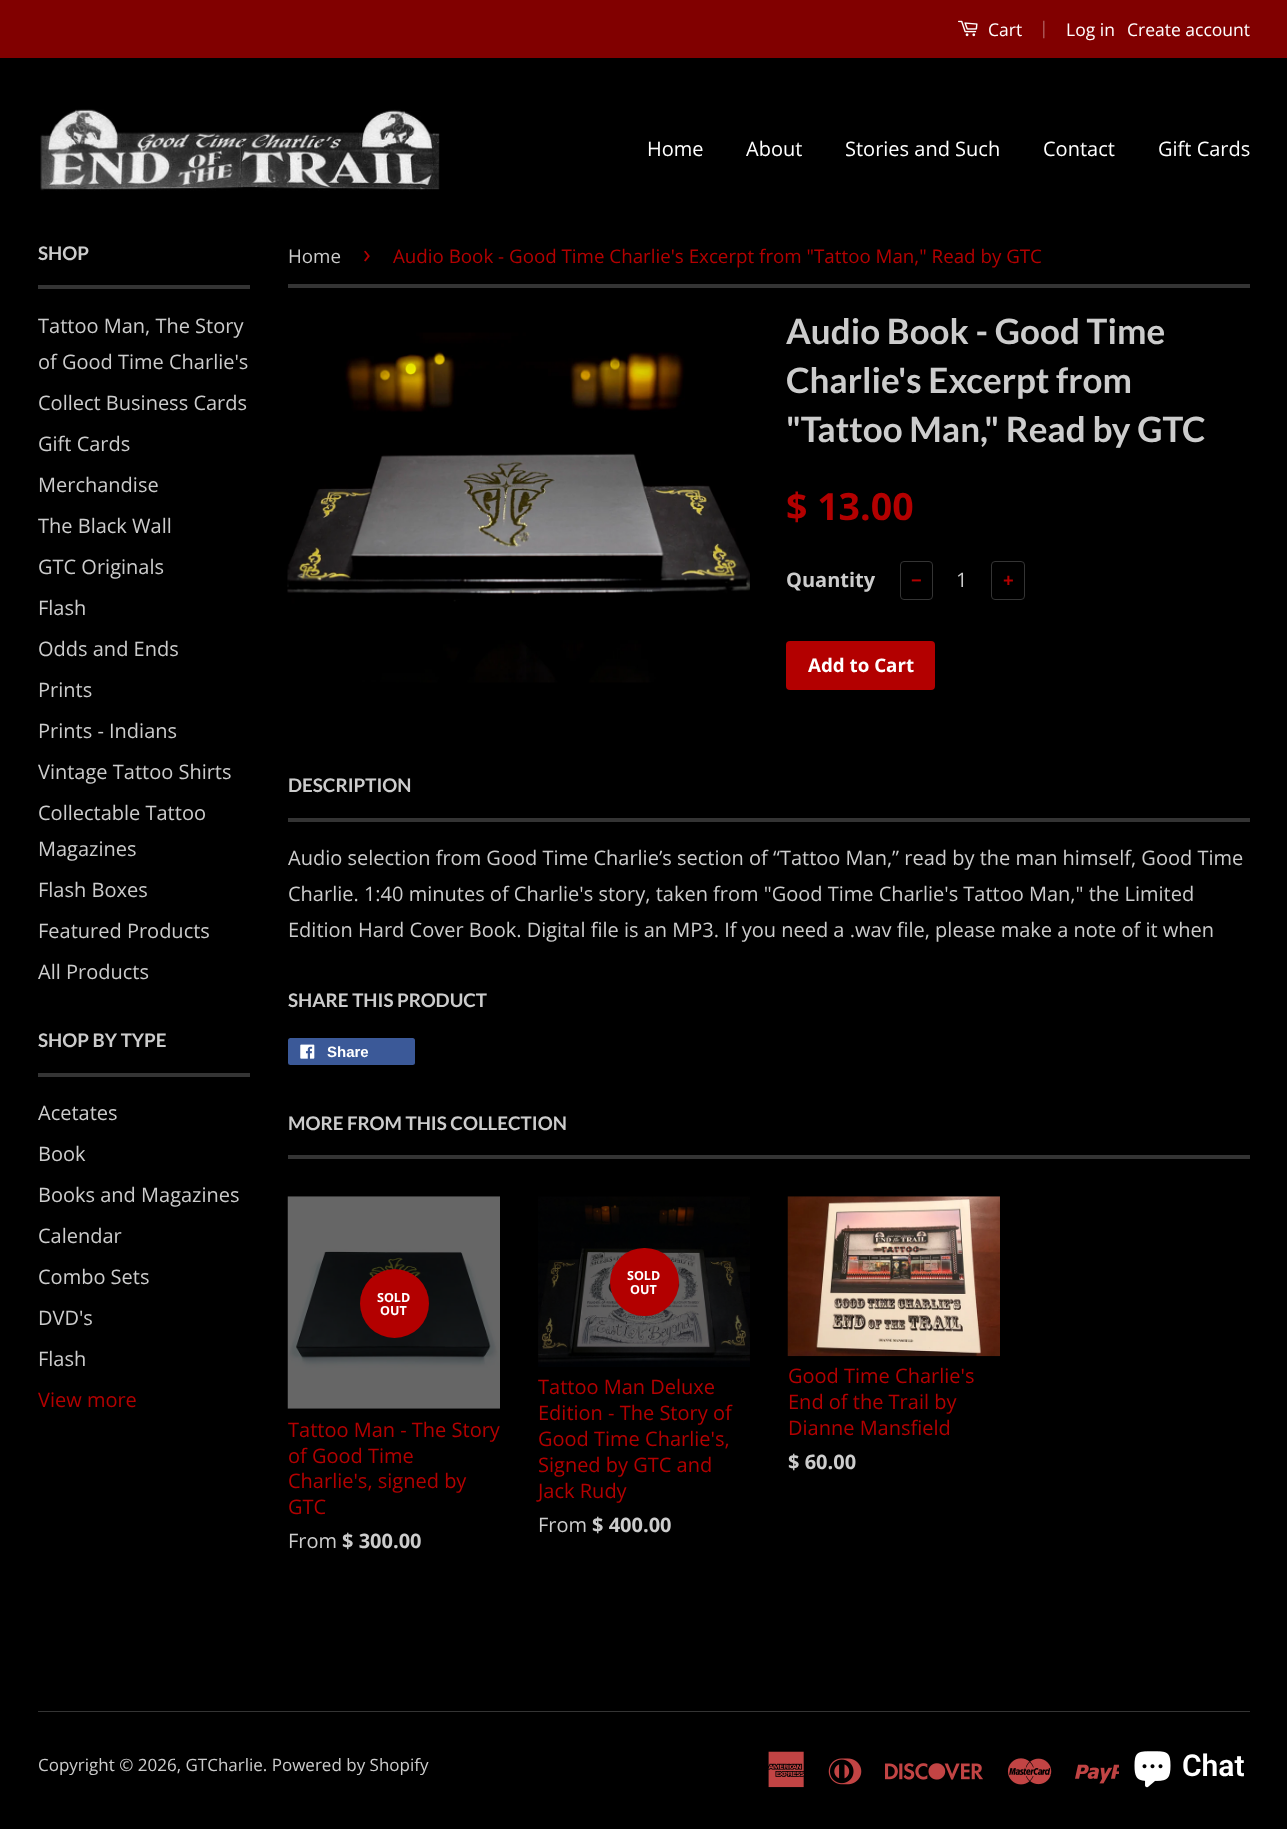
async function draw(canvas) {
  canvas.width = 1287
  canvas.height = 1829
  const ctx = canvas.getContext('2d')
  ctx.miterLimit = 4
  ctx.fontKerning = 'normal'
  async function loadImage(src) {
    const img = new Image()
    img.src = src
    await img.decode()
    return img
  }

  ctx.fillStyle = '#000'
  ctx.fillRect(0, 0, 1287, 1829)
  ctx.fillStyle = '#810000'
  ctx.fillRect(0, 0, 1287, 58)
  ctx.drawImage(await loadImage('image0.png'), 958, 20, 20, 17)
  ctx.font = '17.5px Open Sans'
  ctx.fillStyle = '#fff'
  ctx.fillText('Cart', 988, 36)
  ctx.fillStyle = '#b36666'
  ctx.fillText('|', 1039, 34)
  ctx.fillStyle = '#fff'
  ctx.fillText('Log in', 1066, 36)
  ctx.fillText('Create account', 1127, 36)
  ctx.drawImage(await loadImage('image1.png'), 40, 109, 400, 82)
  ctx.font = '20px Open Sans'
  ctx.fillText('Home', 647, 156)
  ctx.fillText('About', 746, 156)
  ctx.fillText('Stories and Such', 845, 156)
  ctx.fillText('Contact', 1043, 156)
  ctx.fillText('Gift Cards', 1158, 156)
  ctx.fillStyle = '#343434'
  ctx.fillRect(38, 285, 212, 4)
  ctx.font = 'bold 18.75px Lato'
  ctx.fillStyle = '#ccc'
  ctx.fillText('SHOP', 38, 260)
  ctx.font = '20px Open Sans'
  ctx.fillText('Tattoo Man, The Story', 38, 333)
  ctx.fillText('of Good Time Charlie\'s', 38, 369)
  ctx.fillText('Collect Business Cards', 38, 410)
  ctx.fillText('Gift Cards', 38, 451)
  ctx.fillText('Merchandise', 38, 492)
  ctx.fillText('The Black Wall', 38, 533)
  ctx.fillText('GTC Originals', 38, 574)
  ctx.fillText('Flash', 38, 615)
  ctx.fillText('Odds and Ends', 38, 656)
  ctx.fillText('Prints', 38, 697)
  ctx.fillText('Prints - Indians', 38, 738)
  ctx.fillText('Vintage Tattoo Shirts', 38, 779)
  ctx.fillText('Collectable Tattoo', 38, 820)
  ctx.fillText('Magazines', 38, 856)
  ctx.fillText('Flash Boxes', 38, 897)
  ctx.fillText('Featured Products', 38, 938)
  ctx.fillText('All Products', 38, 979)
  ctx.fillStyle = '#343434'
  ctx.fillRect(38, 1073, 212, 4)
  ctx.font = 'bold 18.75px Lato'
  ctx.fillStyle = '#ccc'
  ctx.fillText('SHOP BY TYPE', 38, 1047)
  ctx.font = '20px Open Sans'
  ctx.fillText('Acetates', 38, 1120)
  ctx.fillText('Book', 38, 1161)
  ctx.fillText('Books and Magazines', 38, 1202)
  ctx.fillText('Calendar', 38, 1243)
  ctx.fillText('Combo Sets', 38, 1284)
  ctx.fillText('DVD\'s', 38, 1325)
  ctx.fillText('Flash', 38, 1366)
  ctx.fillStyle = '#b30000'
  ctx.fillText('View more', 38, 1407)
  ctx.fillStyle = '#343434'
  ctx.fillRect(288, 284, 962, 4)
  ctx.font = '18.75px Open Sans'
  ctx.fillStyle = '#ccc'
  ctx.fillText('Home', 288, 263)
  ctx.font = '26px Open Sans'
  ctx.fillStyle = '#b30000'
  ctx.fillText('›', 363, 263)
  ctx.font = '18.75px Open Sans'
  ctx.fillText('Audio Book - Good Time Charlie\'s Excerpt from "Tattoo Man," Read by GTC', 393, 263)
  ctx.drawImage(await loadImage('image2.png'), 287, 332, 463, 351)
  ctx.font = 'bold 35px Lato'
  ctx.fillStyle = '#ccc'
  ctx.fillText('Audio Book - Good Time', 786, 344)
  ctx.fillText('Charlie\'s Excerpt from', 786, 393)
  ctx.fillText('"Tattoo Man," Read by GTC', 786, 442)
  ctx.font = 'bold 37.5px Open Sans'
  ctx.fillStyle = '#b30000'
  ctx.fillText('$ 13.00', 786, 520)
  ctx.font = 'bold 20px Open Sans'
  ctx.fillStyle = '#ccc'
  ctx.fillText('Quantity', 786, 587)
  ctx.beginPath()
  ctx.roundRect(900.5, 561.5, 32, 38, 3.5)
  ctx.strokeStyle = '#343434'
  ctx.stroke()
  ctx.font = 'bold 18.75px Open Sans'
  ctx.fillStyle = '#b30000'
  ctx.fillText('−', 911, 587)
  ctx.font = '20px Open Sans'
  ctx.fillStyle = '#ccc'
  ctx.fillText('1', 956, 587)
  ctx.beginPath()
  ctx.roundRect(991.5, 561.5, 33, 38, 3.5)
  ctx.stroke()
  ctx.font = 'bold 18.75px Open Sans'
  ctx.fillStyle = '#b30000'
  ctx.fillText('+', 1003, 587)
  ctx.beginPath()
  ctx.roundRect(786, 641, 149, 49, 4)
  ctx.fill()
  ctx.fillStyle = '#fff'
  ctx.fillText('Add to Cart', 808, 672)
  ctx.fillStyle = '#343434'
  ctx.fillRect(288, 818, 962, 4)
  ctx.font = 'bold 18.75px Lato'
  ctx.fillStyle = '#ccc'
  ctx.fillText('DESCRIPTION', 288, 792)
  ctx.font = '20px Open Sans'
  ctx.fillText('Audio selection from Good Time Charlie’s section of “Tattoo Man,” read by the man himself, Good Time', 288, 865)
  ctx.fillText('Charlie. 1:40 minutes of Charlie\'s story, taken from "Good Time Charlie\'s Tattoo Man," the Limited', 288, 901)
  ctx.fillText('Edition Hard Cover Book. Digital file is an MP3. If you need a .wav file, please make a note of it when', 288, 937)
  ctx.font = 'bold 18.75px Lato'
  ctx.fillText('SHARE THIS PRODUCT', 288, 1007)
  ctx.fillStyle = '#3b5998'
  ctx.beginPath()
  ctx.roundRect(288, 1038, 127, 27, 2.5)
  ctx.fill()
  ctx.drawImage(await loadImage('image3.png'), 300, 1044, 15, 15)
  ctx.font = 'bold 15px Liberation Sans'
  ctx.fillStyle = '#fff'
  ctx.fillText('Share', 327, 1057)
  ctx.fillStyle = '#343434'
  ctx.fillRect(288, 1155, 962, 4)
  ctx.font = 'bold 18.75px Lato'
  ctx.fillStyle = '#ccc'
  ctx.fillText('MORE FROM THIS COLLECTION', 288, 1130)
  ctx.drawImage(await loadImage('image4.png'), 287, 1196, 213, 213)
  ctx.fillStyle = '#b30000'
  ctx.beginPath()
  ctx.arc(394.5, 1303.5, 34.5, 0, 2 * Math.PI)
  ctx.fill()
  ctx.font = 'bold 12.5px Open Sans'
  ctx.fillStyle = '#fff'
  ctx.fillText('SOLD', 377, 1302)
  ctx.fillText('OUT', 380, 1315)
  ctx.font = '20px Open Sans'
  ctx.fillStyle = '#b30000'
  ctx.fillText('Tattoo Man - The Story', 288, 1437)
  ctx.fillText('of Good Time', 288, 1463)
  ctx.fillText('Charlie\'s, signed by', 288, 1488)
  ctx.fillText('GTC', 288, 1514)
  ctx.fillStyle = '#ccc'
  ctx.fillText('From', 288, 1548)
  ctx.font = 'bold 20px Open Sans'
  ctx.fillText('$ 300.00', 342, 1548)
  ctx.drawImage(await loadImage('image5.png'), 538, 1196, 212, 171)
  ctx.fillStyle = '#b30000'
  ctx.beginPath()
  ctx.roundRect(610, 1248, 69, 68, 34)
  ctx.fill()
  ctx.font = 'bold 12.5px Open Sans'
  ctx.fillStyle = '#fff'
  ctx.fillText('SOLD', 627, 1280)
  ctx.fillText('OUT', 630, 1294)
  ctx.font = '20px Open Sans'
  ctx.fillStyle = '#b30000'
  ctx.fillText('Tattoo Man Deluxe', 538, 1394)
  ctx.fillText('Edition - The Story of', 538, 1420)
  ctx.fillText('Good Time Charlie\'s,', 538, 1446)
  ctx.fillText('Signed by GTC and', 538, 1472)
  ctx.fillText('Jack Rudy', 538, 1498)
  ctx.fillStyle = '#ccc'
  ctx.fillText('From', 538, 1532)
  ctx.font = 'bold 20px Open Sans'
  ctx.fillText('$ 400.00', 592, 1532)
  ctx.drawImage(await loadImage('image6.png'), 787, 1196, 213, 161)
  ctx.font = '20px Open Sans'
  ctx.fillStyle = '#b30000'
  ctx.fillText('Good Time Charlie\'s', 788, 1383)
  ctx.fillText('End of the Trail by', 788, 1409)
  ctx.fillText('Dianne Mansfield', 788, 1435)
  ctx.font = 'bold 20px Open Sans'
  ctx.fillStyle = '#ccc'
  ctx.fillText('$ 60.00', 788, 1469)
  ctx.fillStyle = '#343434'
  ctx.fillRect(38, 1711, 1212, 1)
  ctx.font = '17px Open Sans'
  ctx.fillStyle = '#ccc'
  ctx.fillText('Copyright © 2026, GTCharlie. Powered by Shopify', 38, 1771)
  ctx.drawImage(await loadImage('image7.png'), 768, 1751, 36, 37)
  ctx.drawImage(await loadImage('image8.png'), 828, 1758, 34, 27)
  ctx.drawImage(await loadImage('image9.png'), 885, 1763, 98, 17)
  ctx.drawImage(await loadImage('image10.png'), 1007, 1758, 45, 27)
  ctx.drawImage(await loadImage('image11.png'), 1075, 1764, 44, 20)
  ctx.fillStyle = '#00000026'
  ctx.filter = 'blur(3px)'
  ctx.beginPath()
  ctx.roundRect(1119, 1729, 141, 75, 20)
  ctx.fill()
  ctx.filter = 'none'
  ctx.drawImage(await loadImage('image12.png'), 1134, 1751, 37, 37)
  ctx.font = '600 30px Roboto'
  ctx.fillStyle = '#fff'
  ctx.fillText('Chat', 1182, 1776)
}

draw(document.querySelector('canvas'))
